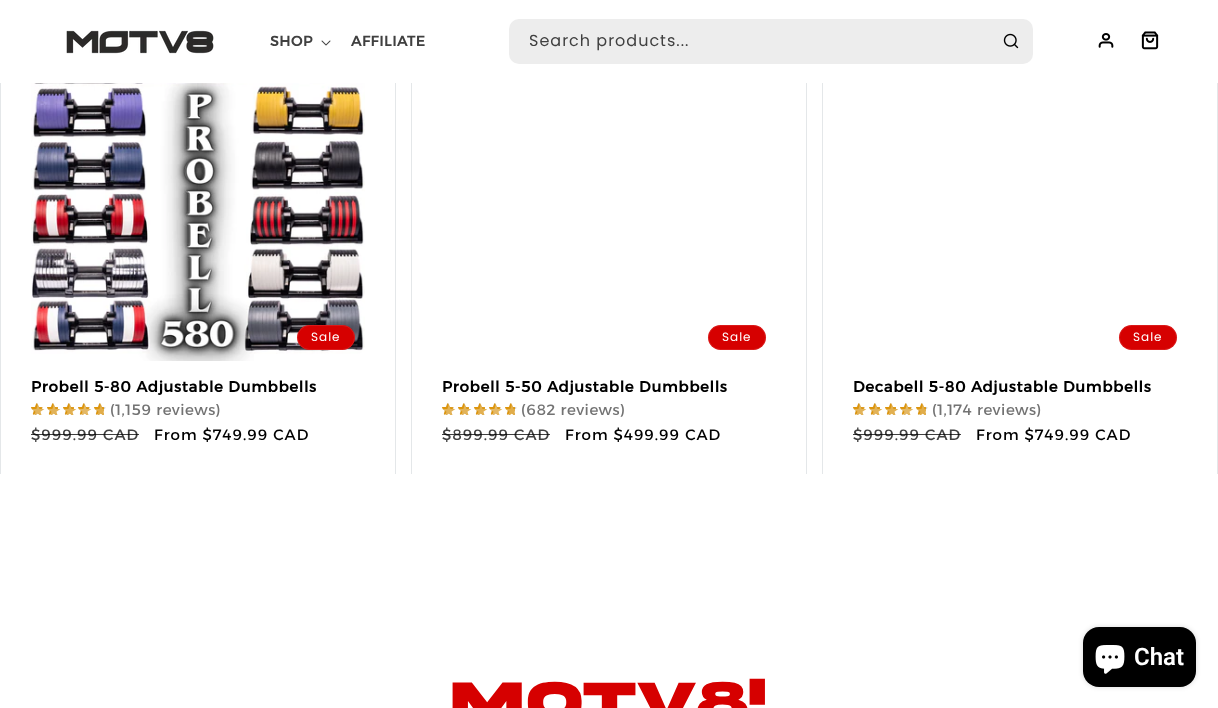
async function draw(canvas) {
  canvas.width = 1218
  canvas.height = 708
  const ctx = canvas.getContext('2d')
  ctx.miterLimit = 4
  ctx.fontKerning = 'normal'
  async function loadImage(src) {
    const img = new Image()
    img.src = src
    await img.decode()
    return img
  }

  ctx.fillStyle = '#fff'
  ctx.fillRect(0, 0, 1218, 708)
  ctx.drawImage(await loadImage('image5.png'), 31, 83, 334, 278)
  ctx.fillStyle = '#d60000'
  ctx.beginPath()
  ctx.roundRect(297, 325, 58, 25, 12.5)
  ctx.fill()
  ctx.beginPath()
  ctx.roundRect(297.5, 325.5, 57, 24, 12)
  ctx.strokeStyle = '#ffffff1a'
  ctx.stroke()
  ctx.drawImage(await loadImage('image6.png'), 31, 403, 12, 12)
  ctx.drawImage(await loadImage('image7.png'), 47, 403, 11, 12)
  ctx.drawImage(await loadImage('image7.png'), 63, 403, 11, 12)
  ctx.drawImage(await loadImage('image6.png'), 78, 403, 12, 12)
  ctx.drawImage(await loadImage('image6.png'), 94, 403, 12, 12)
  ctx.drawImage(await loadImage('image8.png'), 31, 403, 12, 12)
  ctx.drawImage(await loadImage('image9.png'), 47, 403, 11, 12)
  ctx.drawImage(await loadImage('image10.png'), 63, 403, 11, 12)
  ctx.drawImage(await loadImage('image11.png'), 78, 403, 12, 12)
  ctx.drawImage(await loadImage('image12.png'), 94, 403, 10, 12)
  ctx.letterSpacing = '1px'
  ctx.font = '15px Alexandria'
  ctx.fillStyle = '#404040'
  ctx.fillText('$999.99 CAD', 31, 440)
  ctx.fillStyle = '#000000bf'
  ctx.fillRect(31, 434, 108, 1)
  ctx.save()
  ctx.beginPath()
  ctx.rect(0, 0, 1218, 474)
  ctx.clip()
  ctx.beginPath()
  ctx.roundRect(0.5, -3.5, 395, 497, 7.5)
  ctx.strokeStyle = '#e4e7e9'
  ctx.stroke()
  ctx.restore()
  ctx.fillStyle = '#d60000'
  ctx.beginPath()
  ctx.roundRect(708, 325, 58, 25, 12.5)
  ctx.fill()
  ctx.beginPath()
  ctx.roundRect(708.5, 325.5, 57, 24, 12)
  ctx.stroke()
  ctx.drawImage(await loadImage('image6.png'), 442, 403, 12, 12)
  ctx.drawImage(await loadImage('image7.png'), 458, 403, 11, 12)
  ctx.drawImage(await loadImage('image7.png'), 474, 403, 11, 12)
  ctx.drawImage(await loadImage('image6.png'), 489, 403, 12, 12)
  ctx.drawImage(await loadImage('image6.png'), 505, 403, 12, 12)
  ctx.drawImage(await loadImage('image8.png'), 442, 403, 12, 12)
  ctx.drawImage(await loadImage('image9.png'), 458, 403, 11, 12)
  ctx.drawImage(await loadImage('image10.png'), 474, 403, 11, 12)
  ctx.drawImage(await loadImage('image11.png'), 489, 403, 12, 12)
  ctx.drawImage(await loadImage('image12.png'), 505, 403, 10, 12)
  ctx.fillStyle = '#404040'
  ctx.fillText('$899.99 CAD', 442, 440)
  ctx.fillStyle = '#000000bf'
  ctx.fillRect(442, 434, 108, 1)
  ctx.save()
  ctx.beginPath()
  ctx.rect(0, 0, 1218, 474)
  ctx.clip()
  ctx.beginPath()
  ctx.roundRect(411.5, -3.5, 395, 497, 7.5)
  ctx.strokeStyle = '#e4e7e9'
  ctx.stroke()
  ctx.restore()
  ctx.fillStyle = '#d60000'
  ctx.beginPath()
  ctx.roundRect(1119, 325, 58, 25, 12.5)
  ctx.fill()
  ctx.beginPath()
  ctx.roundRect(1119.5, 325.5, 57, 24, 12)
  ctx.stroke()
  ctx.drawImage(await loadImage('image6.png'), 853, 403, 12, 12)
  ctx.drawImage(await loadImage('image7.png'), 869, 403, 11, 12)
  ctx.drawImage(await loadImage('image7.png'), 885, 403, 11, 12)
  ctx.drawImage(await loadImage('image6.png'), 900, 403, 12, 12)
  ctx.drawImage(await loadImage('image6.png'), 916, 403, 12, 12)
  ctx.drawImage(await loadImage('image8.png'), 853, 403, 12, 12)
  ctx.drawImage(await loadImage('image9.png'), 869, 403, 11, 12)
  ctx.drawImage(await loadImage('image10.png'), 885, 403, 11, 12)
  ctx.drawImage(await loadImage('image11.png'), 900, 403, 12, 12)
  ctx.drawImage(await loadImage('image12.png'), 916, 403, 10, 12)
  ctx.fillStyle = '#404040'
  ctx.fillText('$999.99 CAD', 853, 440)
  ctx.fillStyle = '#000000bf'
  ctx.fillRect(853, 434, 108, 1)
  ctx.save()
  ctx.beginPath()
  ctx.rect(0, 0, 1218, 474)
  ctx.clip()
  ctx.beginPath()
  ctx.roundRect(822.5, -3.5, 395, 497, 7.5)
  ctx.strokeStyle = '#e4e7e9'
  ctx.stroke()
  ctx.restore()
  ctx.fillStyle = '#fff'
  ctx.fillRect(0, 0, 1218, 83)
  ctx.drawImage(await loadImage('image0.png'), 66, 30, 148, 24)
  ctx.letterSpacing = '0.6px'
  ctx.font = 'bold 14px Alexandria'
  ctx.fillStyle = '#404040'
  ctx.fillText('SHOP', 270, 46)
  ctx.drawImage(await loadImage('image1.png'), 321, 40, 10, 6)
  ctx.fillText('AFFILIATE', 351, 46)
  ctx.fillStyle = '#ededed'
  ctx.beginPath()
  ctx.roundRect(509, 19, 524, 45, 10)
  ctx.fill()
  ctx.letterSpacing = '1px'
  ctx.font = '16px Poppins'
  ctx.fillStyle = '#404040'
  ctx.fillText('Search products...', 529, 46)
  ctx.drawImage(await loadImage('image2.png'), 1003, 33, 16, 16)
  ctx.drawImage(await loadImage('image3.png'), 1098, 33, 16, 15)
  ctx.drawImage(await loadImage('image4.png'), 1141, 31, 18, 19)
  ctx.font = '12px Poppins'
  ctx.fillStyle = '#fff'
  ctx.fillText('Sale', 311, 341)
  ctx.letterSpacing = '0.7px'
  ctx.font = 'bold 15px Alexandria'
  ctx.fillStyle = '#000'
  ctx.fillText('Probell 5-80 Adjustable Dumbbells', 31, 392)
  ctx.save()
  ctx.beginPath()
  ctx.rect(31, 403, 73, 12)
  ctx.clip()
  ctx.letterSpacing = '0px'
  ctx.font = 'bold 15px DejaVu Sans'
  ctx.fillStyle = '#e2b359'
  ctx.fillText('★', 31, 416)
  ctx.fillText('★', 47, 416)
  ctx.fillStyle = '#e2b051'
  ctx.fillText('★', 63, 416)
  ctx.fillStyle = '#e4b865'
  ctx.fillText('★', 78, 416)
  ctx.fillStyle = '#e1ad4a'
  ctx.fillText('★', 94, 416)
  ctx.restore()
  ctx.letterSpacing = '0.6px'
  ctx.font = '15px Alexandria'
  ctx.fillStyle = '#737373'
  ctx.fillText('(1,159 reviews)', 110, 415)
  ctx.letterSpacing = '1px'
  ctx.fillStyle = '#000'
  ctx.fillText('From $749.99 CAD', 154, 440)
  ctx.font = '12px Poppins'
  ctx.fillStyle = '#fff'
  ctx.fillText('Sale', 722, 341)
  ctx.letterSpacing = '0.7px'
  ctx.font = 'bold 15px Alexandria'
  ctx.fillStyle = '#000'
  ctx.fillText('Probell 5-50 Adjustable Dumbbells', 442, 392)
  ctx.save()
  ctx.beginPath()
  ctx.rect(442, 403, 73, 12)
  ctx.clip()
  ctx.letterSpacing = '0px'
  ctx.font = 'bold 15px DejaVu Sans'
  ctx.fillStyle = '#e2b359'
  ctx.fillText('★', 442, 416)
  ctx.fillText('★', 458, 416)
  ctx.fillStyle = '#e2b051'
  ctx.fillText('★', 474, 416)
  ctx.fillStyle = '#e4b865'
  ctx.fillText('★', 489, 416)
  ctx.fillStyle = '#e1ad4a'
  ctx.fillText('★', 505, 416)
  ctx.restore()
  ctx.letterSpacing = '0.6px'
  ctx.font = '15px Alexandria'
  ctx.fillStyle = '#737373'
  ctx.fillText('(682 reviews)', 521, 415)
  ctx.letterSpacing = '1px'
  ctx.fillStyle = '#000'
  ctx.fillText('From $499.99 CAD', 565, 440)
  ctx.font = '12px Poppins'
  ctx.fillStyle = '#fff'
  ctx.fillText('Sale', 1133, 341)
  ctx.letterSpacing = '0.7px'
  ctx.font = 'bold 15px Alexandria'
  ctx.fillStyle = '#000'
  ctx.fillText('Decabell 5-80 Adjustable Dumbbells', 853, 392)
  ctx.save()
  ctx.beginPath()
  ctx.rect(853, 403, 73, 12)
  ctx.clip()
  ctx.letterSpacing = '0px'
  ctx.font = 'bold 15px DejaVu Sans'
  ctx.fillStyle = '#e2b359'
  ctx.fillText('★', 853, 416)
  ctx.fillText('★', 869, 416)
  ctx.fillStyle = '#e2b051'
  ctx.fillText('★', 885, 416)
  ctx.fillStyle = '#e4b865'
  ctx.fillText('★', 900, 416)
  ctx.fillStyle = '#e1ad4a'
  ctx.fillText('★', 916, 416)
  ctx.restore()
  ctx.letterSpacing = '0.6px'
  ctx.font = '15px Alexandria'
  ctx.fillStyle = '#737373'
  ctx.fillText('(1,174 reviews)', 932, 415)
  ctx.letterSpacing = '1px'
  ctx.fillStyle = '#000'
  ctx.fillText('From $749.99 CAD', 976, 440)
  ctx.fillStyle = '#00000026'
  ctx.filter = 'blur(2.5px)'
  ctx.beginPath()
  ctx.roundRect(1083, 627, 113, 60, 16)
  ctx.fill()
  ctx.filter = 'none'
  ctx.fillStyle = '#000'
  ctx.beginPath()
  ctx.roundRect(1083, 627, 113, 60, 16)
  ctx.fill()
  ctx.drawImage(await loadImage('image13.png'), 1095, 645, 30, 29)
  ctx.letterSpacing = '0px'
  ctx.font = '600 24px Roboto'
  ctx.fillStyle = '#fff'
  ctx.fillText('Chat', 1134, 665)
  ctx.letterSpacing = '0.7px'
  ctx.font = 'bold 60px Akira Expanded'
  ctx.fillStyle = '#d60000'
  ctx.fillText('MOTV8!', 452, 722)
}

draw(document.querySelector('canvas'))
